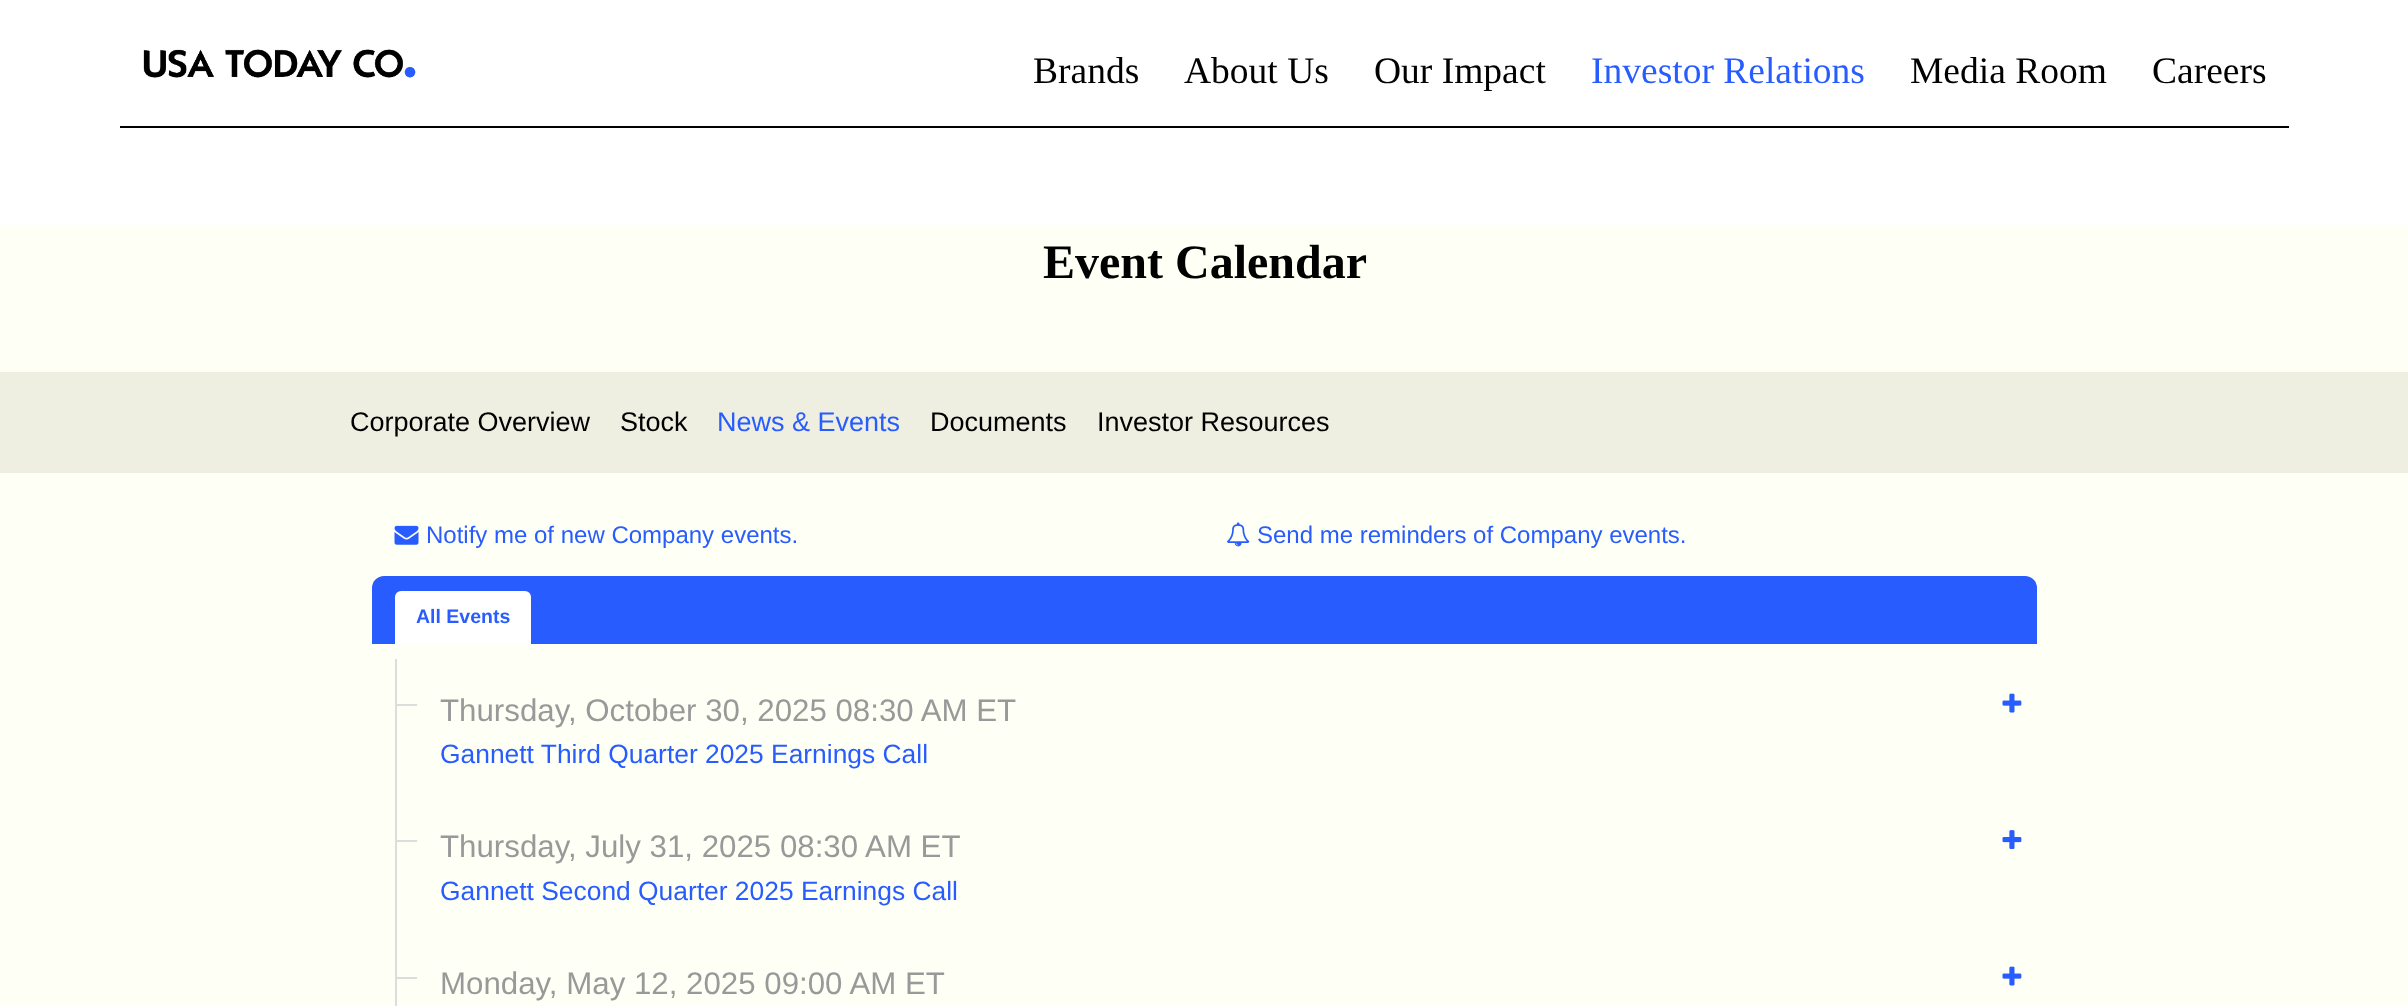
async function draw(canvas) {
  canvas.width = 2408
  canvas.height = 1006
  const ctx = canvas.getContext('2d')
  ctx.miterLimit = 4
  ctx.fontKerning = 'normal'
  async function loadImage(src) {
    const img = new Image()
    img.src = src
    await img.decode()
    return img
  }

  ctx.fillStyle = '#fff'
  ctx.fillRect(0, 0, 2408, 1006)
  ctx.fillStyle = '#fefff5'
  ctx.fillRect(0, 225, 2408, 781)
  ctx.fillStyle = '#000'
  ctx.fillRect(120, 126, 2169, 2)
  ctx.drawImage(await loadImage('image0.png'), 143, 49, 273, 29)
  ctx.font = '37.5px Liberation Serif'
  ctx.fillText('Brands', 1033, 83)
  ctx.fillText('About Us', 1184, 83)
  ctx.fillText('Our Impact', 1374, 83)
  ctx.fillStyle = '#285cfe'
  ctx.fillText('Investor Relations', 1591, 83)
  ctx.fillStyle = '#000'
  ctx.fillText('Media Room', 1910, 83)
  ctx.fillText('Careers', 2152, 83)
  ctx.font = 'bold 48px Liberation Serif'
  ctx.fillText('Event Calendar', 1043, 278)
  ctx.fillStyle = '#eeefe1'
  ctx.fillRect(0, 372, 2408, 101)
  ctx.font = '27px Liberation Sans'
  ctx.fillStyle = '#000'
  ctx.fillText('Corporate Overview', 350, 431)
  ctx.fillText('Stock', 620, 431)
  ctx.fillStyle = '#285cfe'
  ctx.fillText('News & Events', 717, 431)
  ctx.fillStyle = '#000'
  ctx.fillText('Documents', 930, 431)
  ctx.fillText('Investor Resources', 1097, 431)
  ctx.drawImage(await loadImage('image1.png'), 394, 525, 25, 20)
  ctx.font = '24px Liberation Sans'
  ctx.fillStyle = '#285cfe'
  ctx.fillText('Notify me of new Company events.', 426, 543)
  ctx.drawImage(await loadImage('image2.png'), 1227, 522, 23, 25)
  ctx.fillText('Send me reminders of Company events.', 1257, 543)
  ctx.beginPath()
  ctx.roundRect(372, 576, 1665, 68, [12, 12, 0, 0])
  ctx.fill()
  ctx.fillStyle = '#fff'
  ctx.beginPath()
  ctx.roundRect(395, 591, 136, 53, [6, 6, 0, 0])
  ctx.fill()
  ctx.font = 'bold 19.5px Liberation Sans'
  ctx.fillStyle = '#285cfe'
  ctx.fillText('All Events', 416, 623)
  ctx.fillStyle = '#ddd'
  ctx.fillRect(395, 659, 2, 347)
  ctx.fillRect(395, 704, 22, 2)
  ctx.font = '31.25px Liberation Sans'
  ctx.fillStyle = '#999'
  ctx.fillText('Thursday, October 30, 2025 08:30 AM ET', 440, 721)
  ctx.font = '26.4px Liberation Sans'
  ctx.fillStyle = '#285cfe'
  ctx.fillText('Gannett Third Quarter 2025 Earnings Call', 440, 763)
  ctx.drawImage(await loadImage('image3.png'), 2002, 693, 20, 20)
  ctx.fillStyle = '#ddd'
  ctx.fillRect(395, 840, 22, 2)
  ctx.font = '31.25px Liberation Sans'
  ctx.fillStyle = '#999'
  ctx.fillText('Thursday, July 31, 2025 08:30 AM ET', 440, 857)
  ctx.font = '26.4px Liberation Sans'
  ctx.fillStyle = '#285cfe'
  ctx.fillText('Gannett Second Quarter 2025 Earnings Call', 440, 900)
  ctx.drawImage(await loadImage('image4.png'), 2002, 830, 20, 19)
  ctx.fillStyle = '#ddd'
  ctx.fillRect(395, 977, 22, 2)
  ctx.font = '31.25px Liberation Sans'
  ctx.fillStyle = '#999'
  ctx.fillText('Monday, May 12, 2025 09:00 AM ET', 440, 994)
  ctx.drawImage(await loadImage('image3.png'), 2002, 966, 20, 20)
}

draw(document.querySelector('canvas'))
